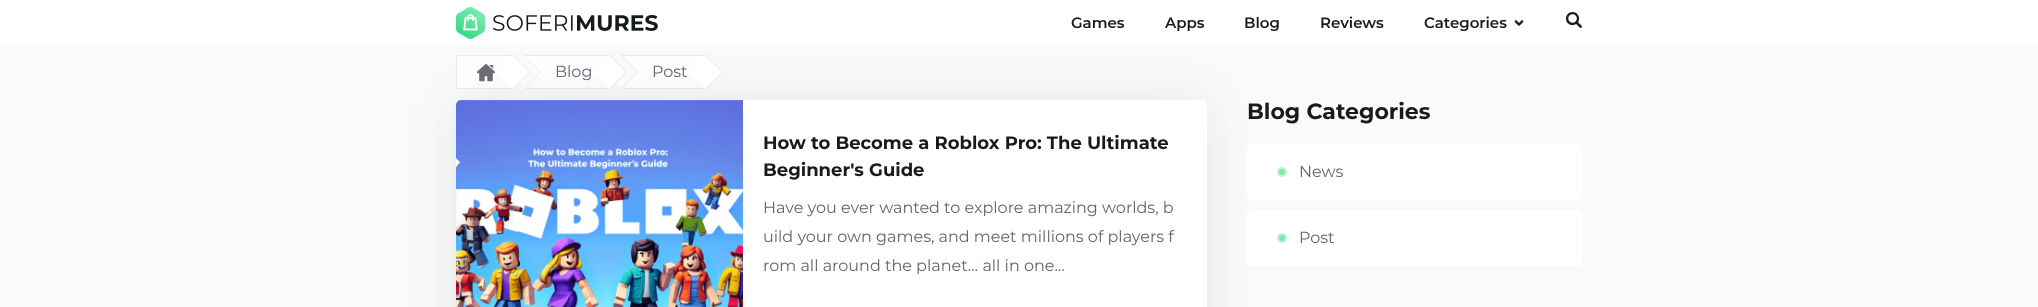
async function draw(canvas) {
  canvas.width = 2038
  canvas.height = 307
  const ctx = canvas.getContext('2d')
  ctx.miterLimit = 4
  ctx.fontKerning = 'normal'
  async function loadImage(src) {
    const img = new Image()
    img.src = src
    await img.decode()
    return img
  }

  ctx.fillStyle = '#fff'
  ctx.fillRect(0, 0, 2038, 307)
  ctx.fillStyle = '#f9fafb'
  ctx.fillRect(0, 45, 2038, 262)
  ctx.fillStyle = '#fff'
  ctx.fillRect(457, 56, 55, 32)
  ctx.strokeStyle = '#ececed'
  ctx.strokeRect(456.5, 55.5, 57, 33)
  ctx.drawImage(await loadImage('image3.png'), 477, 64, 18, 18)
  ctx.fillRect(525, 56, 84, 32)
  ctx.strokeRect(524.5, 55.5, 86, 33)
  ctx.fillRect(622, 56, 83, 32)
  ctx.strokeRect(621.5, 55.5, 85, 33)
  ctx.fillStyle = '#222d381a'
  ctx.filter = 'blur(25px)'
  ctx.beginPath()
  ctx.roundRect(456, 101, 751, 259, 5)
  ctx.fill()
  ctx.filter = 'none'
  ctx.drawImage(await loadImage('image0.png'), 456, 7, 202, 32)
  ctx.font = '600 15px Montserrat'
  ctx.fillStyle = '#181a1b'
  ctx.fillText('Games', 1071, 28)
  ctx.fillText('Apps', 1165, 28)
  ctx.fillText('Blog', 1244, 28)
  ctx.fillText('Reviews', 1320, 28)
  ctx.fillText('Categories', 1424, 28)
  ctx.drawImage(await loadImage('image1.png'), 1514, 20, 10, 6)
  ctx.drawImage(await loadImage('image2.png'), 1566, 12, 16, 16)
  ctx.fillStyle = '#ececed'
  ctx.beginPath()
  ctx.moveTo(447.5, 59)
  ctx.lineTo(448, 59.5)
  ctx.lineTo(447.5, 60)
  ctx.lineTo(447, 59.5)
  ctx.closePath()
  ctx.fill()
  ctx.beginPath()
  ctx.moveTo(447.5, 59)
  ctx.lineTo(448, 59.5)
  ctx.lineTo(447.5, 60)
  ctx.lineTo(447, 59.5)
  ctx.closePath()
  ctx.fill()
  ctx.fillStyle = '#f9fafb'
  ctx.beginPath()
  ctx.moveTo(523.5, 55.5)
  ctx.lineTo(539.5, 72)
  ctx.lineTo(523.5, 88.5)
  ctx.lineTo(507, 72)
  ctx.closePath()
  ctx.fill()
  ctx.fillStyle = '#ececed'
  ctx.beginPath()
  ctx.moveTo(524, 55)
  ctx.lineTo(541, 72)
  ctx.lineTo(540.5, 72.5)
  ctx.lineTo(523.5, 55.5)
  ctx.closePath()
  ctx.fill()
  ctx.beginPath()
  ctx.moveTo(540.5, 71.5)
  ctx.lineTo(541, 72)
  ctx.lineTo(524, 89)
  ctx.lineTo(523.5, 88.5)
  ctx.closePath()
  ctx.fill()
  ctx.fillStyle = '#fff'
  ctx.beginPath()
  ctx.moveTo(512.5, 55.5)
  ctx.lineTo(528.5, 72)
  ctx.lineTo(512.5, 88.5)
  ctx.lineTo(496, 72)
  ctx.closePath()
  ctx.fill()
  ctx.fillStyle = '#ececed'
  ctx.beginPath()
  ctx.moveTo(513, 55)
  ctx.lineTo(530, 72)
  ctx.lineTo(529.5, 72.5)
  ctx.lineTo(512.5, 55.5)
  ctx.closePath()
  ctx.fill()
  ctx.beginPath()
  ctx.moveTo(529.5, 71.5)
  ctx.lineTo(530, 72)
  ctx.lineTo(513, 89)
  ctx.lineTo(512.5, 88.5)
  ctx.closePath()
  ctx.fill()
  ctx.font = '16px Montserrat'
  ctx.fillStyle = '#636772'
  ctx.fillText('Blog', 555, 77)
  ctx.fillStyle = '#f9fafb'
  ctx.beginPath()
  ctx.moveTo(620.5, 55.5)
  ctx.lineTo(637, 72)
  ctx.lineTo(620.5, 88.5)
  ctx.lineTo(604.5, 72)
  ctx.closePath()
  ctx.fill()
  ctx.fillStyle = '#ececed'
  ctx.beginPath()
  ctx.moveTo(621.5, 55)
  ctx.lineTo(638.5, 72)
  ctx.lineTo(637.5, 72.5)
  ctx.lineTo(620.5, 55.5)
  ctx.closePath()
  ctx.fill()
  ctx.beginPath()
  ctx.moveTo(637.5, 71.5)
  ctx.lineTo(638.5, 72)
  ctx.lineTo(621.5, 89)
  ctx.lineTo(620.5, 88.5)
  ctx.closePath()
  ctx.fill()
  ctx.fillStyle = '#fff'
  ctx.beginPath()
  ctx.moveTo(609.5, 55.5)
  ctx.lineTo(626, 72)
  ctx.lineTo(609.5, 88.5)
  ctx.lineTo(593.5, 72)
  ctx.closePath()
  ctx.fill()
  ctx.fillStyle = '#ececed'
  ctx.beginPath()
  ctx.moveTo(610.5, 55)
  ctx.lineTo(627.5, 72)
  ctx.lineTo(626.5, 72.5)
  ctx.lineTo(609.5, 55.5)
  ctx.closePath()
  ctx.fill()
  ctx.beginPath()
  ctx.moveTo(626.5, 71.5)
  ctx.lineTo(627.5, 72)
  ctx.lineTo(610.5, 89)
  ctx.lineTo(609.5, 88.5)
  ctx.closePath()
  ctx.fill()
  ctx.fillStyle = '#636772'
  ctx.fillText('Post', 652, 77)
  ctx.fillStyle = '#fff'
  ctx.beginPath()
  ctx.moveTo(705.5, 55.5)
  ctx.lineTo(721.5, 72)
  ctx.lineTo(705.5, 88.5)
  ctx.lineTo(689, 72)
  ctx.closePath()
  ctx.fill()
  ctx.fillStyle = '#ececed'
  ctx.beginPath()
  ctx.moveTo(706, 55)
  ctx.lineTo(723, 72)
  ctx.lineTo(722.5, 72.5)
  ctx.lineTo(705.5, 55.5)
  ctx.closePath()
  ctx.fill()
  ctx.beginPath()
  ctx.moveTo(722.5, 71.5)
  ctx.lineTo(723, 72)
  ctx.lineTo(706, 89)
  ctx.lineTo(705.5, 88.5)
  ctx.closePath()
  ctx.fill()
  ctx.fillStyle = '#fff'
  ctx.beginPath()
  ctx.moveTo(456, 100)
  ctx.lineTo(1202, 100)
  ctx.bezierCurveTo(1205, 100, 1207, 102, 1207, 105)
  ctx.lineTo(1207, 307)
  ctx.bezierCurveTo(1207, 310, 1205, 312, 1202, 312)
  ctx.lineTo(456, 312)
  ctx.closePath()
  ctx.fill()
  ctx.drawImage(await loadImage('image4.png'), 456, 100, 287, 207)
  ctx.font = 'bold 18px Montserrat'
  ctx.fillStyle = '#181a1b'
  ctx.fillText('How to Become a Roblox Pro: The Ultimate', 763, 149)
  ctx.fillText('Beginner\'s Guide', 763, 176)
  ctx.font = '16px Montserrat'
  ctx.fillStyle = '#636772'
  ctx.fillText('Have you ever wanted to explore amazing worlds, b', 763, 213)
  ctx.fillText('uild your own games, and meet millions of players f', 763, 242)
  ctx.fillText('rom all around the planet… all in one...', 763, 271)
  ctx.font = 'bold 22px Montserrat'
  ctx.fillStyle = '#181a1b'
  ctx.fillText('Blog Categories', 1247, 119)
  ctx.fillStyle = '#fff'
  ctx.beginPath()
  ctx.roundRect(1247, 144, 336, 56, 5)
  ctx.fill()
  ctx.fillStyle = '#bcf4d7'
  ctx.beginPath()
  ctx.arc(1282, 172, 5, 0, 2 * Math.PI)
  ctx.fill()
  ctx.fillStyle = '#7ae9af'
  ctx.beginPath()
  ctx.arc(1282, 172, 3, 0, 2 * Math.PI)
  ctx.fill()
  ctx.font = '16px Montserrat'
  ctx.fillStyle = '#636772'
  ctx.fillText('News', 1299, 177)
  ctx.fillStyle = '#fff'
  ctx.beginPath()
  ctx.roundRect(1247, 210, 336, 56, 5)
  ctx.fill()
  ctx.fillStyle = '#bdf4d7'
  ctx.beginPath()
  ctx.arc(1282, 238, 5, 0, 2 * Math.PI)
  ctx.fill()
  ctx.fillStyle = '#7ae9af'
  ctx.beginPath()
  ctx.arc(1282, 238, 3, 0, 2 * Math.PI)
  ctx.fill()
  ctx.fillStyle = '#636772'
  ctx.fillText('Post', 1299, 243)
}

draw(document.querySelector('canvas'))
